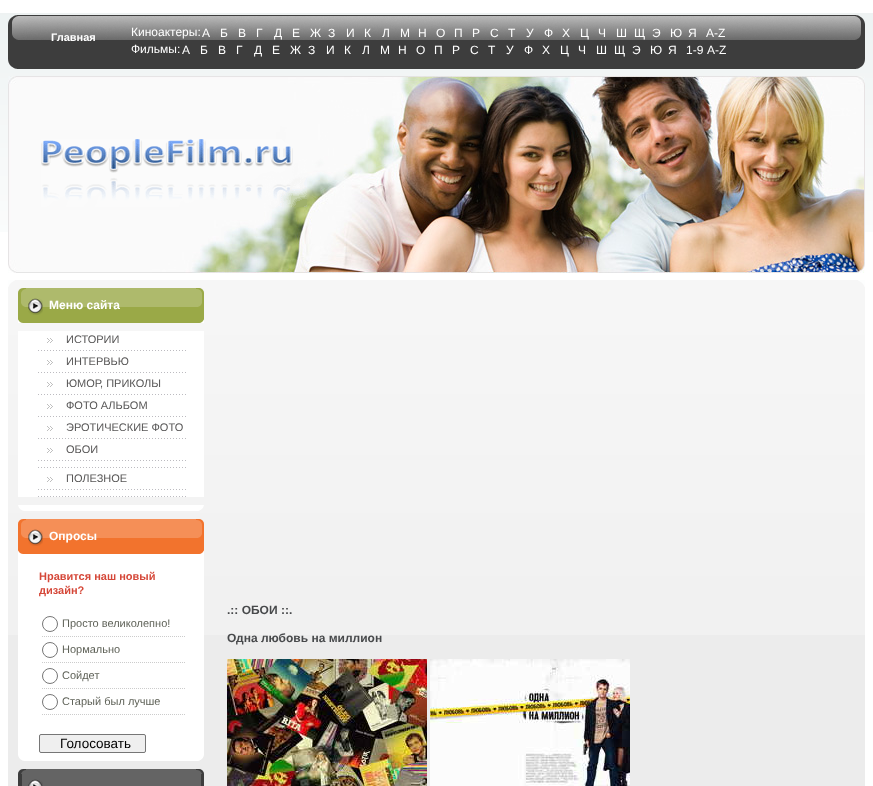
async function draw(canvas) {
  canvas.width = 873
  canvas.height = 786
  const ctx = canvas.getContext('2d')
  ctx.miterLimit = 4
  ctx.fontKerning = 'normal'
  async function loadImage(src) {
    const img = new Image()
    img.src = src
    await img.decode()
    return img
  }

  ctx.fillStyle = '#fff'
  ctx.fillRect(0, 0, 873, 786)
  ctx.drawImage(await loadImage('image0.png'), 0, 13, 873, 219)
  ctx.drawImage(await loadImage('image1.png'), 8, 15, 857, 10)
  ctx.fillStyle = '#3d3d3d'
  ctx.fillRect(8, 25, 857, 34)
  ctx.drawImage(await loadImage('image2.png'), 12, 25, 849, 15)
  ctx.font = 'bold 11px Liberation Sans'
  ctx.fillStyle = '#fff'
  ctx.fillText('Главная', 51, 41)
  ctx.font = '12px Liberation Sans'
  ctx.fillText('Киноактеры:', 131, 36)
  ctx.fillText('А', 202, 37)
  ctx.fillText('Б', 220, 37)
  ctx.fillText('В', 238, 37)
  ctx.fillText('Г', 256, 37)
  ctx.fillText('Д', 274, 37)
  ctx.fillText('Е', 292, 37)
  ctx.fillText('Ж', 310, 37)
  ctx.fillText('З', 328, 37)
  ctx.fillText('И', 346, 37)
  ctx.fillText('К', 364, 37)
  ctx.fillText('Л', 382, 37)
  ctx.fillText('М', 400, 37)
  ctx.fillText('Н', 418, 37)
  ctx.fillText('О', 436, 37)
  ctx.fillText('П', 454, 37)
  ctx.fillText('Р', 472, 37)
  ctx.fillText('С', 490, 37)
  ctx.fillText('Т', 508, 37)
  ctx.fillText('У', 526, 37)
  ctx.fillText('Ф', 544, 37)
  ctx.fillText('Х', 562, 37)
  ctx.fillText('Ц', 580, 37)
  ctx.fillText('Ч', 598, 37)
  ctx.fillText('Ш', 616, 37)
  ctx.fillText('Щ', 634, 37)
  ctx.fillText('Э', 652, 37)
  ctx.fillText('Ю', 670, 37)
  ctx.fillText('Я', 688, 37)
  ctx.fillText('A-Z', 706, 37)
  ctx.fillText('Фильмы:', 131, 53)
  ctx.fillText('А', 182, 54)
  ctx.fillText('Б', 200, 54)
  ctx.fillText('В', 218, 54)
  ctx.fillText('Г', 236, 54)
  ctx.fillText('Д', 254, 54)
  ctx.fillText('Е', 272, 54)
  ctx.fillText('Ж', 290, 54)
  ctx.fillText('З', 308, 54)
  ctx.fillText('И', 326, 54)
  ctx.fillText('К', 344, 54)
  ctx.fillText('Л', 362, 54)
  ctx.fillText('М', 380, 54)
  ctx.fillText('Н', 398, 54)
  ctx.fillText('О', 416, 54)
  ctx.fillText('П', 434, 54)
  ctx.fillText('Р', 452, 54)
  ctx.fillText('С', 470, 54)
  ctx.fillText('Т', 488, 54)
  ctx.fillText('У', 506, 54)
  ctx.fillText('Ф', 524, 54)
  ctx.fillText('Х', 542, 54)
  ctx.fillText('Ц', 560, 54)
  ctx.fillText('Ч', 578, 54)
  ctx.fillText('Ш', 596, 54)
  ctx.fillText('Щ', 614, 54)
  ctx.fillText('Э', 632, 54)
  ctx.fillText('Ю', 650, 54)
  ctx.fillText('Я', 668, 54)
  ctx.fillText('1-9', 686, 54)
  ctx.fillText('A-Z', 707, 54)
  ctx.drawImage(await loadImage('image3.png'), 8, 59, 857, 10)
  ctx.drawImage(await loadImage('image4.png'), 8, 76, 857, 197)
  ctx.drawImage(await loadImage('image5.png'), 41, 139, 266, 68)
  ctx.fillStyle = '#ececec'
  ctx.fillRect(8, 635, 857, 151)
  ctx.drawImage(await loadImage('image6.png'), 8, 280, 857, 355)
  ctx.drawImage(await loadImage('image7.png'), 8, 280, 7, 7)
  ctx.drawImage(await loadImage('image8.png'), 858, 280, 7, 7)
  ctx.drawImage(await loadImage('image9.png'), 18, 288, 8, 5)
  ctx.drawImage(await loadImage('image10.png'), 196, 288, 8, 5)
  ctx.fillStyle = '#aeba6c'
  ctx.fillRect(26, 288, 170, 5)
  ctx.fillStyle = '#9aa947'
  ctx.fillRect(18, 307, 186, 11)
  ctx.fillStyle = '#aeba6c'
  ctx.fillRect(25, 293, 173, 14)
  ctx.drawImage(await loadImage('image11.png'), 18, 293, 7, 14)
  ctx.drawImage(await loadImage('image12.png'), 198, 293, 6, 14)
  ctx.drawImage(await loadImage('image13.png'), 28, 298, 15, 17)
  ctx.font = 'bold 12px Liberation Sans'
  ctx.fillStyle = '#fff'
  ctx.fillText('Меню сайта', 49, 309)
  ctx.drawImage(await loadImage('image14.png'), 18, 318, 8, 5)
  ctx.drawImage(await loadImage('image15.png'), 196, 318, 8, 5)
  ctx.fillStyle = '#9aa947'
  ctx.fillRect(26, 318, 170, 5)
  ctx.fillStyle = '#fff'
  ctx.fillRect(18, 331, 186, 166)
  ctx.drawImage(await loadImage('image16.png'), 38, 350, 148, 1)
  ctx.drawImage(await loadImage('image17.png'), 47, 338, 6, 5)
  ctx.font = '11px Liberation Sans'
  ctx.fillStyle = '#575656'
  ctx.fillText('ИСТОРИИ', 66, 343)
  ctx.drawImage(await loadImage('image16.png'), 38, 372, 148, 1)
  ctx.drawImage(await loadImage('image17.png'), 47, 360, 6, 5)
  ctx.fillText('ИНТЕРВЬЮ', 66, 365)
  ctx.drawImage(await loadImage('image16.png'), 38, 394, 148, 1)
  ctx.drawImage(await loadImage('image17.png'), 47, 382, 6, 5)
  ctx.fillText('ЮМОР, ПРИКОЛЫ', 66, 387)
  ctx.drawImage(await loadImage('image16.png'), 38, 416, 148, 1)
  ctx.drawImage(await loadImage('image17.png'), 47, 404, 6, 5)
  ctx.fillText('ФОТО АЛЬБОМ', 66, 409)
  ctx.drawImage(await loadImage('image16.png'), 38, 438, 148, 1)
  ctx.drawImage(await loadImage('image17.png'), 47, 426, 6, 5)
  ctx.fillText('ЭРОТИЧЕСКИЕ ФОТО', 66, 431)
  ctx.drawImage(await loadImage('image16.png'), 38, 460, 148, 1)
  ctx.drawImage(await loadImage('image17.png'), 47, 448, 6, 5)
  ctx.fillText('ОБОИ', 66, 453)
  ctx.drawImage(await loadImage('image16.png'), 38, 467, 148, 1)
  ctx.drawImage(await loadImage('image16.png'), 38, 489, 148, 1)
  ctx.drawImage(await loadImage('image17.png'), 47, 477, 6, 5)
  ctx.fillText('ПОЛЕЗНОЕ', 66, 482)
  ctx.drawImage(await loadImage('image16.png'), 38, 496, 148, 1)
  ctx.drawImage(await loadImage('image18.png'), 18, 505, 6, 6)
  ctx.drawImage(await loadImage('image19.png'), 198, 505, 6, 6)
  ctx.fillStyle = '#fff'
  ctx.fillRect(24, 505, 174, 6)
  ctx.drawImage(await loadImage('image20.png'), 18, 519, 8, 5)
  ctx.drawImage(await loadImage('image21.png'), 196, 519, 8, 5)
  ctx.fillStyle = '#f58f57'
  ctx.fillRect(26, 519, 170, 5)
  ctx.fillStyle = '#f2732d'
  ctx.fillRect(18, 538, 186, 11)
  ctx.fillStyle = '#f58f57'
  ctx.fillRect(25, 524, 173, 14)
  ctx.drawImage(await loadImage('image22.png'), 18, 524, 7, 14)
  ctx.drawImage(await loadImage('image23.png'), 198, 524, 6, 14)
  ctx.drawImage(await loadImage('image24.png'), 28, 529, 15, 17)
  ctx.font = 'bold 12px Liberation Sans'
  ctx.fillStyle = '#fff'
  ctx.fillText('Опросы', 49, 540)
  ctx.drawImage(await loadImage('image25.png'), 18, 549, 8, 5)
  ctx.drawImage(await loadImage('image26.png'), 196, 549, 8, 5)
  ctx.fillStyle = '#f2732d'
  ctx.fillRect(26, 549, 170, 5)
  ctx.fillStyle = '#fff'
  ctx.fillRect(18, 554, 186, 201)
  ctx.font = 'bold 11px Liberation Sans'
  ctx.fillStyle = '#d54738'
  ctx.fillText('Нравится наш новый', 39, 580)
  ctx.fillText('дизайн?', 39, 594)
  ctx.drawImage(await loadImage('image27.png'), 42, 636, 143, 1)
  ctx.beginPath()
  ctx.arc(50, 624, 7.5, 0, 2 * Math.PI)
  ctx.strokeStyle = '#767676'
  ctx.stroke()
  ctx.font = '11px Liberation Sans'
  ctx.fillStyle = '#5f6258'
  ctx.fillText('Просто великолепно!', 62, 627)
  ctx.drawImage(await loadImage('image27.png'), 42, 662, 143, 1)
  ctx.beginPath()
  ctx.arc(50, 650, 7.5, 0, 2 * Math.PI)
  ctx.stroke()
  ctx.fillText('Нормально', 62, 653)
  ctx.drawImage(await loadImage('image27.png'), 42, 688, 143, 1)
  ctx.beginPath()
  ctx.arc(50, 676, 7.5, 0, 2 * Math.PI)
  ctx.stroke()
  ctx.fillText('Сойдет', 62, 679)
  ctx.drawImage(await loadImage('image27.png'), 42, 714, 143, 1)
  ctx.beginPath()
  ctx.arc(50, 702, 7.5, 0, 2 * Math.PI)
  ctx.stroke()
  ctx.fillText('Старый был лучше', 62, 705)
  ctx.fillStyle = '#efefef'
  ctx.beginPath()
  ctx.roundRect(39.5, 734.5, 106, 18, 1.5)
  ctx.fill()
  ctx.stroke()
  ctx.font = '13.5px Liberation Sans'
  ctx.fillStyle = '#000'
  ctx.fillText('Голосовать', 60, 748)
  ctx.drawImage(await loadImage('image28.png'), 18, 755, 6, 6)
  ctx.drawImage(await loadImage('image29.png'), 198, 755, 6, 6)
  ctx.fillStyle = '#fff'
  ctx.fillRect(24, 755, 174, 6)
  ctx.drawImage(await loadImage('image30.png'), 18, 769, 8, 5)
  ctx.drawImage(await loadImage('image31.png'), 196, 769, 8, 5)
  ctx.fillStyle = '#646464'
  ctx.fillRect(26, 769, 170, 5)
  ctx.fillRect(22, 774, 179, 12)
  ctx.fillStyle = '#3d3d3d'
  ctx.fillRect(18, 774, 4, 12)
  ctx.fillRect(201, 774, 3, 12)
  ctx.drawImage(await loadImage('image32.png'), 28, 779, 15, 7)
  ctx.font = 'bold 12px Liberation Sans'
  ctx.fillStyle = '#47494b'
  ctx.fillText('.:: ОБОИ ::.', 227, 614)
  ctx.fillText('Одна любовь на миллион', 227, 642)
  ctx.drawImage(await loadImage('image33.png'), 227, 659, 200, 127)
  ctx.drawImage(await loadImage('image34.png'), 430, 659, 200, 127)
}

draw(document.querySelector('canvas'))
